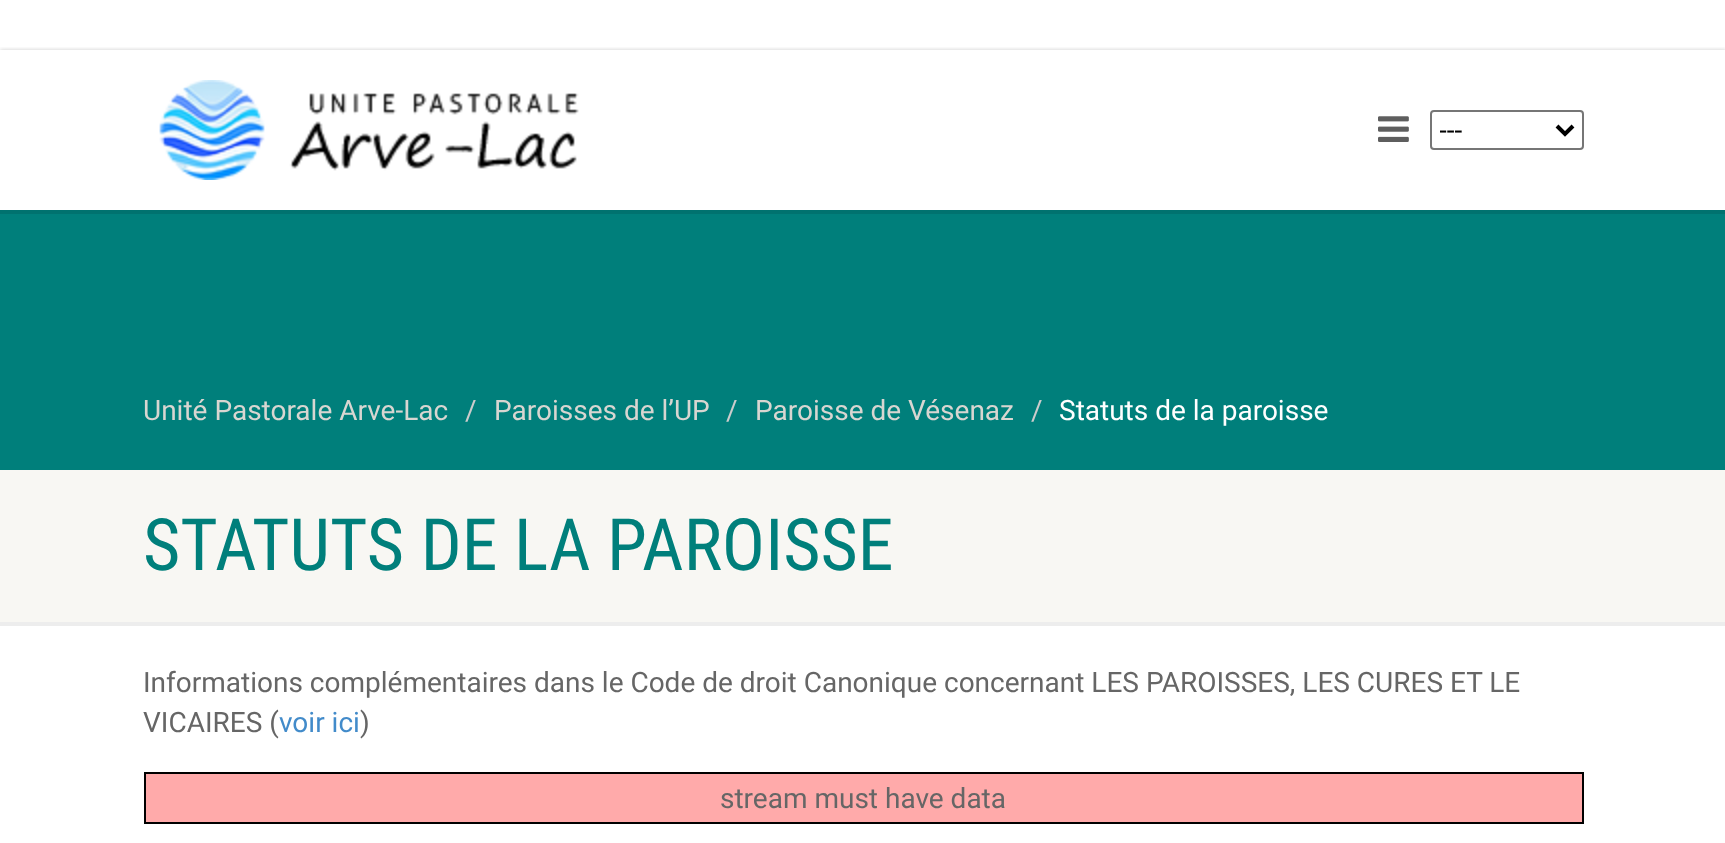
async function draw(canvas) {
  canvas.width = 1725
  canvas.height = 843
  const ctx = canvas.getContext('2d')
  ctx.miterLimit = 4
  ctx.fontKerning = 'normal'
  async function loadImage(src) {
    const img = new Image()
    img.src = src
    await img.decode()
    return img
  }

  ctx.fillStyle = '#fff'
  ctx.fillRect(0, 0, 1725, 843)
  ctx.save()
  ctx.beginPath()
  ctx.rect(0, 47, 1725, 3)
  ctx.clip()
  ctx.fillStyle = '#00000033'
  ctx.filter = 'blur(2px)'
  ctx.beginPath()
  ctx.rect(0, 50, 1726, 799)
  ctx.fill()
  ctx.filter = 'none'
  ctx.restore()
  ctx.fillStyle = '#00726f'
  ctx.fillRect(0, 210, 1725, 4)
  ctx.drawImage(await loadImage('image0.png'), 159, 80, 420, 100)
  ctx.drawImage(await loadImage('image1.png'), 1378, 116, 31, 26)
  ctx.beginPath()
  ctx.roundRect(1431, 111, 152, 38, 3)
  ctx.strokeStyle = '#767676'
  ctx.lineWidth = 2
  ctx.stroke()
  ctx.beginPath()
  ctx.moveTo(1557, 126)
  ctx.lineTo(1565, 134)
  ctx.lineTo(1573, 126)
  ctx.strokeStyle = '#000'
  ctx.lineWidth = 4
  ctx.stroke()
  ctx.save()
  ctx.beginPath()
  ctx.rect(1440, 112, 110, 36)
  ctx.clip()
  ctx.font = '28px Roboto'
  ctx.fillStyle = '#000'
  ctx.fillText('---', 1439, 140)
  ctx.restore()
  ctx.fillStyle = '#007f7b'
  ctx.fillRect(0, 214, 1725, 256)
  ctx.font = '28px Roboto'
  ctx.fillStyle = '#d8d6d1'
  ctx.fillText('Unité Pastorale Arve-Lac', 143, 420)
  ctx.fillStyle = '#ccc'
  ctx.fillText('/', 465, 420)
  ctx.fillStyle = '#d8d6d1'
  ctx.fillText('Paroisses de l’UP', 494, 420)
  ctx.fillStyle = '#ccc'
  ctx.fillText('/', 726, 420)
  ctx.fillStyle = '#d8d6d1'
  ctx.fillText('Paroisse de Vésenaz', 755, 420)
  ctx.fillStyle = '#ccc'
  ctx.fillText('/', 1031, 420)
  ctx.fillStyle = '#fff'
  ctx.fillText('Statuts de la paroisse', 1059, 420)
  ctx.fillStyle = '#ededed'
  ctx.fillRect(0, 622, 1725, 4)
  ctx.fillStyle = '#f8f7f3'
  ctx.fillRect(0, 470, 1725, 152)
  ctx.font = '72px Roboto Condensed'
  ctx.fillStyle = '#007f7b'
  ctx.fillText('STATUTS DE LA PAROISSE', 143, 570)
  ctx.font = '28px Roboto'
  ctx.fillStyle = '#666'
  ctx.fillText('Informations complémentaires dans le Code de droit Canonique concernant LES PAROISSES, LES CURES ET LE', 143, 692)
  ctx.fillText('VICAIRES (', 143, 732)
  ctx.fillStyle = '#428bca'
  ctx.fillText('voir ici', 279, 732)
  ctx.fillStyle = '#666'
  ctx.fillText(')', 360, 732)
  ctx.lineWidth = 2
  ctx.strokeRect(145, 773, 1438, 50)
  ctx.fillStyle = '#faa'
  ctx.fillRect(146, 774, 1436, 48)
  ctx.fillStyle = '#666'
  ctx.fillText('stream must have data', 720, 808)
}

draw(document.querySelector('canvas'))
